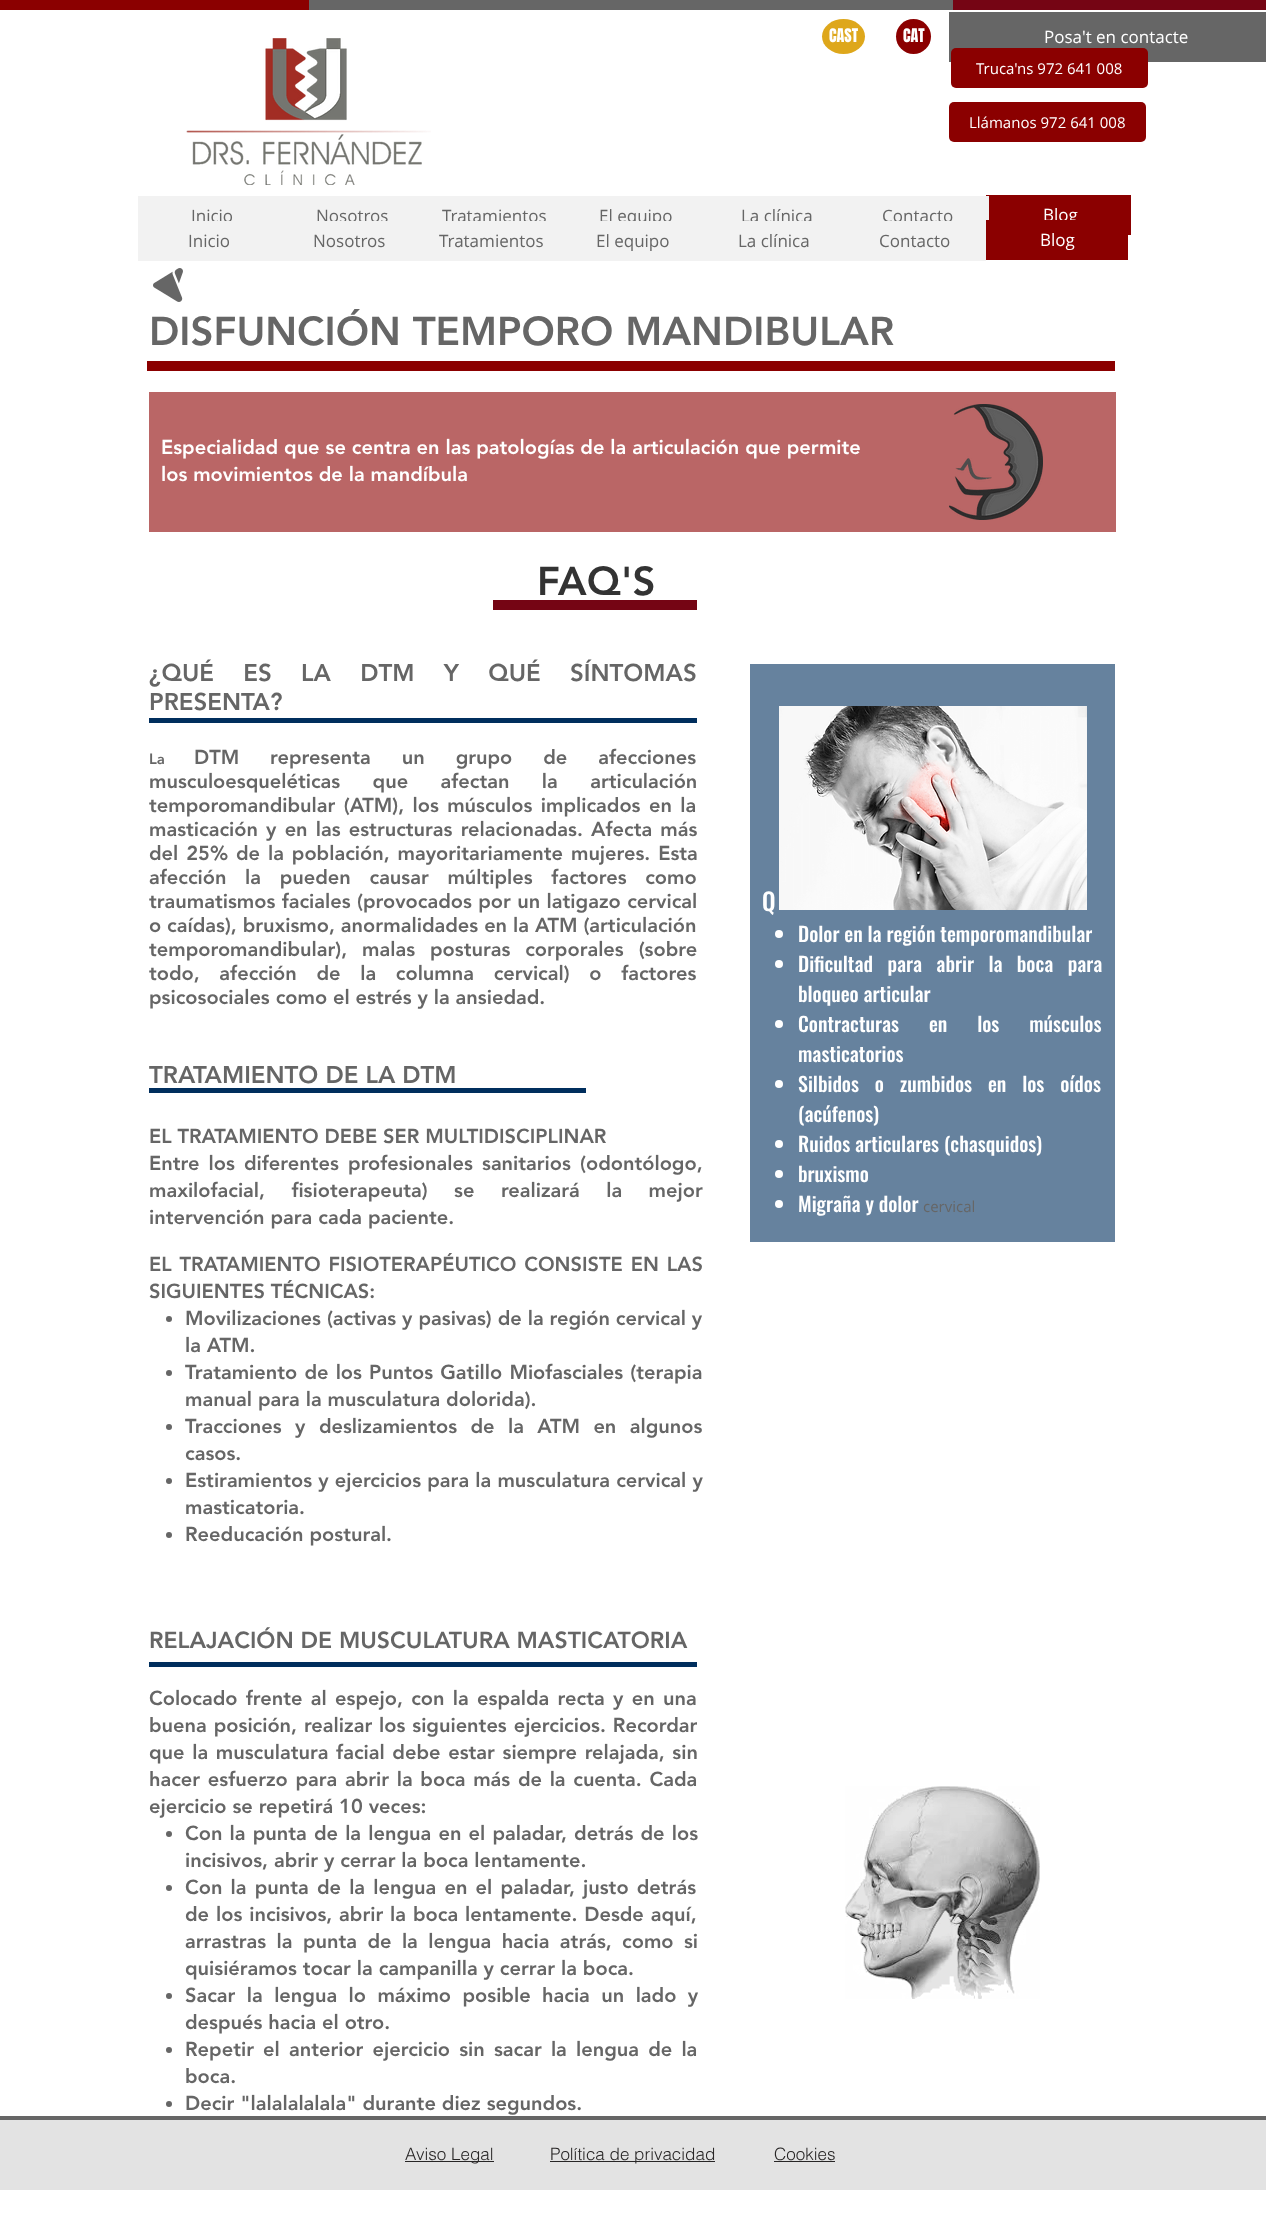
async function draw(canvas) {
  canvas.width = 1266
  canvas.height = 2238
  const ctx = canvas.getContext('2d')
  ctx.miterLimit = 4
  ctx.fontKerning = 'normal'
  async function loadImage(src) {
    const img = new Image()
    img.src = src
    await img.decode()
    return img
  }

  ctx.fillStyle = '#fff'
  ctx.fillRect(0, 0, 1266, 2238)
  ctx.fillStyle = '#8b0000'
  ctx.fillRect(0, 0, 309, 10)
  ctx.fillStyle = '#666'
  ctx.fillRect(309, 0, 644, 10)
  ctx.fillStyle = '#750514'
  ctx.fillRect(953, 0, 313, 10)
  ctx.drawImage(await loadImage('image0.png'), 186, 38, 245, 147)
  ctx.fillStyle = '#dea71b'
  ctx.beginPath()
  ctx.ellipse(843.5, 36.5, 21.5, 17.5, 0, 0, 2 * Math.PI)
  ctx.fill()
  ctx.font = '16px Anton'
  ctx.fillStyle = '#fff'
  ctx.fillText('CAST', 829, 42)
  ctx.fillStyle = '#8b0000'
  ctx.beginPath()
  ctx.arc(913.5, 36.5, 17.5, 0, 2 * Math.PI)
  ctx.fill()
  ctx.fillStyle = '#fff'
  ctx.fillText('CAT', 903, 42)
  ctx.fillStyle = '#666'
  ctx.fillRect(949, 12, 317, 50)
  ctx.font = '17px Open Sans'
  ctx.fillStyle = '#fff'
  ctx.fillText('Posa\'t en contacte', 1044, 43)
  ctx.fillStyle = '#8b0000'
  ctx.beginPath()
  ctx.roundRect(949, 102, 197, 40, 5)
  ctx.fill()
  ctx.font = '15px Open Sans'
  ctx.fillStyle = '#fff'
  ctx.fillText('Llámanos 972 641 008', 969, 128)
  ctx.fillStyle = '#8b0000'
  ctx.fillRect(986, 195, 3, 1)
  ctx.fillStyle = '#f2f2f2'
  ctx.fillRect(138, 196, 3, 25)
  ctx.fillRect(141, 196, 848, 25)
  ctx.font = '17px Open Sans'
  ctx.fillStyle = '#666'
  ctx.fillText('Inicio', 191, 222)
  ctx.fillText('Nosotros', 316, 222)
  ctx.fillText('Tratamientos', 442, 222)
  ctx.fillText('El equipo', 599, 222)
  ctx.fillText('La clínica', 741, 222)
  ctx.fillText('Contacto', 882, 222)
  ctx.fillStyle = '#8b0000'
  ctx.fillRect(989, 195, 142, 40)
  ctx.fillStyle = '#fff'
  ctx.fillText('Blog', 1043, 221)
  ctx.fillStyle = '#8b0000'
  ctx.beginPath()
  ctx.roundRect(951, 48, 197, 40, 5)
  ctx.fill()
  ctx.font = '15px Open Sans'
  ctx.fillStyle = '#fff'
  ctx.fillText('Truca\'ns 972 641 008', 976, 74)
  ctx.fillStyle = '#f2f2f2'
  ctx.fillRect(138, 221, 848, 40)
  ctx.font = '17px Open Sans'
  ctx.fillStyle = '#666'
  ctx.fillText('Inicio', 188, 247)
  ctx.fillText('Nosotros', 313, 247)
  ctx.fillText('Tratamientos', 439, 247)
  ctx.fillText('El equipo', 596, 247)
  ctx.fillText('La clínica', 738, 247)
  ctx.fillText('Contacto', 879, 247)
  ctx.fillStyle = '#8b0000'
  ctx.fillRect(986, 220, 142, 40)
  ctx.fillStyle = '#fff'
  ctx.fillText('Blog', 1040, 246)
  ctx.drawImage(await loadImage('image1.png'), 153, 268, 30, 34)
  ctx.font = '900 40px "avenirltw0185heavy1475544"'
  ctx.fillStyle = '#666'
  ctx.fillText('DISFUNCIÓN TEMPORO MANDIBULAR', 149, 345)
  ctx.fillStyle = '#8b0000'
  ctx.fillRect(147, 361, 968, 10)
  ctx.fillStyle = '#ba6666'
  ctx.fillRect(149, 392, 967, 140)
  ctx.font = '900 20px "avenirltw0185heavy1475544"'
  ctx.fillStyle = '#fff'
  ctx.fillText('Especialidad que se centra en las patologías de la articulación que permite', 161, 454)
  ctx.fillText('los movimientos de la mandíbula', 161, 481)
  ctx.drawImage(await loadImage('image2.png'), 949, 404, 94, 116)
  ctx.font = '900 40px "avenirltw0185heavy1475544"'
  ctx.fillStyle = '#333'
  ctx.fillText('FAQ\'S', 537, 595)
  ctx.fillStyle = '#750514'
  ctx.fillRect(493, 600, 204, 10)
  ctx.wordSpacing = '22.25px'
  ctx.font = '900 24px "avenirltw0185heavy1475544"'
  ctx.fillStyle = '#666'
  ctx.fillText('¿QUÉ ES LA DTM Y QUÉ SÍNTOMAS', 149, 681)
  ctx.wordSpacing = '0px'
  ctx.fillText('PRESENTA?', 149, 710)
  ctx.font = '900 15px "avenirltw0185heavy1475544"'
  ctx.fillText('La', 149, 764)
  ctx.wordSpacing = '25px'
  ctx.font = '900 20px "avenirltw0185heavy1475544"'
  ctx.fillText('DTM representa un grupo de afecciones', 194, 764)
  ctx.wordSpacing = '26.5px'
  ctx.fillText('musculoesqueléticas que afectan la articulación', 149, 788)
  ctx.wordSpacing = '2.5px'
  ctx.fillText('temporomandibular (ATM), los músculos implicados en la', 149, 812)
  ctx.wordSpacing = '2.25px'
  ctx.fillText('masticación y en las estructuras relacionadas. Afecta más', 149, 836)
  ctx.wordSpacing = '2px'
  ctx.fillText('del 25% de la población, mayoritariamente mujeres. Esta', 149, 860)
  ctx.wordSpacing = '12.75px'
  ctx.fillText('afección la pueden causar múltiples factores como', 149, 884)
  ctx.wordSpacing = '0.5px'
  ctx.fillText('traumatismos faciales (provocados por un latigazo cervical', 149, 908)
  ctx.wordSpacing = '0px'
  ctx.fillText('o caídas), bruxismo, anormalidades en la ATM (articulación', 149, 932)
  ctx.wordSpacing = '9px'
  ctx.fillText('temporomandibular), malas posturas corporales (sobre', 149, 956)
  ctx.wordSpacing = '13.75px'
  ctx.fillText('todo, afección de la columna cervical) o factores', 149, 980)
  ctx.wordSpacing = '0px'
  ctx.fillText('psicosociales como el estrés y la ansiedad.', 149, 1004)
  ctx.fillStyle = '#66829e'
  ctx.fillRect(750, 664, 365, 578)
  ctx.drawImage(await loadImage('image3.png'), 779, 706, 308, 204)
  ctx.fillStyle = '#002e5d'
  ctx.fillRect(149, 718, 548, 5)
  ctx.font = '900 24px "avenirltw0185heavy1475544"'
  ctx.fillStyle = '#666'
  ctx.fillText('TRATAMIENTO DE LA DTM', 149, 1083)
  ctx.font = '900 20px "avenirltw0185heavy1475544"'
  ctx.fillText('EL TRATAMIENTO DEBE SER MULTIDISCIPLINAR', 149, 1143)
  ctx.wordSpacing = '3.25px'
  ctx.fillText('Entre los diferentes profesionales sanitarios (odontólogo,', 149, 1170)
  ctx.wordSpacing = '20.5px'
  ctx.fillText('maxilofacial, fisioterapeuta) se realizará la mejor', 149, 1197)
  ctx.wordSpacing = '0px'
  ctx.fillText('intervención para cada paciente.', 149, 1224)
  ctx.wordSpacing = '2px'
  ctx.fillText('EL TRATAMIENTO FISIOTERAPÉUTICO CONSISTE EN LAS', 149, 1271)
  ctx.wordSpacing = '0px'
  ctx.fillText('SIGUIENTES TÉCNICAS:', 149, 1298)
  ctx.beginPath()
  ctx.arc(169, 1319, 3, 0, 2 * Math.PI)
  ctx.fill()
  ctx.fillText('Movilizaciones (activas y pasivas) de la región cervical y', 185, 1325)
  ctx.fillText('la ATM.', 185, 1352)
  ctx.beginPath()
  ctx.arc(169, 1373, 3, 0, 2 * Math.PI)
  ctx.fill()
  ctx.wordSpacing = '1.25px'
  ctx.fillText('Tratamiento de los Puntos Gatillo Miofasciales (terapia', 185, 1379)
  ctx.wordSpacing = '0px'
  ctx.fillText('manual para la musculatura dolorida).', 185, 1406)
  ctx.beginPath()
  ctx.arc(169, 1427, 3, 0, 2 * Math.PI)
  ctx.fill()
  ctx.wordSpacing = '7.5px'
  ctx.fillText('Tracciones y deslizamientos de la ATM en algunos', 185, 1433)
  ctx.wordSpacing = '0px'
  ctx.fillText('casos.', 185, 1460)
  ctx.beginPath()
  ctx.arc(169, 1481, 3, 0, 2 * Math.PI)
  ctx.fill()
  ctx.wordSpacing = '0.25px'
  ctx.fillText('Estiramientos y ejercicios para la musculatura cervical y', 185, 1487)
  ctx.wordSpacing = '0px'
  ctx.fillText('masticatoria.', 185, 1514)
  ctx.beginPath()
  ctx.arc(169, 1535, 3, 0, 2 * Math.PI)
  ctx.fill()
  ctx.fillText('Reeducación postural.', 185, 1541)
  ctx.font = '500 24px Oswald'
  ctx.fillStyle = '#fff'
  ctx.fillText('Q', 762, 911)
  ctx.beginPath()
  ctx.arc(779, 934, 4, 0, 2 * Math.PI)
  ctx.fill()
  ctx.font = '500 20px Oswald'
  ctx.fillText('Dolor en la región temporomandibular', 798, 942)
  ctx.beginPath()
  ctx.arc(779, 964, 4, 0, 2 * Math.PI)
  ctx.fill()
  ctx.wordSpacing = '9.5px'
  ctx.fillText('Dificultad para abrir la boca para', 798, 972)
  ctx.wordSpacing = '0px'
  ctx.fillText('bloqueo articular', 798, 1002)
  ctx.beginPath()
  ctx.arc(779, 1024, 4, 0, 2 * Math.PI)
  ctx.fill()
  ctx.wordSpacing = '25px'
  ctx.fillText('Contracturas en los músculos', 798, 1032)
  ctx.wordSpacing = '0px'
  ctx.fillText('masticatorios', 798, 1062)
  ctx.beginPath()
  ctx.arc(779, 1084, 4, 0, 2 * Math.PI)
  ctx.fill()
  ctx.wordSpacing = '11px'
  ctx.fillText('Silbidos o zumbidos en los oídos', 798, 1092)
  ctx.wordSpacing = '0px'
  ctx.fillText('(acúfenos)', 798, 1122)
  ctx.beginPath()
  ctx.arc(779, 1144, 4, 0, 2 * Math.PI)
  ctx.fill()
  ctx.fillText('Ruidos articulares (chasquidos)', 798, 1152)
  ctx.beginPath()
  ctx.arc(779, 1174, 4, 0, 2 * Math.PI)
  ctx.fill()
  ctx.fillText('bruxismo', 798, 1182)
  ctx.beginPath()
  ctx.arc(779, 1204, 4, 0, 2 * Math.PI)
  ctx.fill()
  ctx.fillText('Migraña y dolor', 798, 1212)
  ctx.font = '15px Open Sans'
  ctx.fillStyle = '#666'
  ctx.fillText('cervical', 923, 1212)
  ctx.fillStyle = '#002e5d'
  ctx.fillRect(149, 1088, 437, 5)
  ctx.font = '900 23px "avenirltw0185heavy1475544"'
  ctx.fillStyle = '#666'
  ctx.fillText('RELAJACIÓN DE MUSCULATURA MASTICATORIA', 149, 1648)
  ctx.wordSpacing = '2.4px'
  ctx.font = '900 20px "avenirltw0185heavy1475544"'
  ctx.fillText('Colocado frente al espejo, con la espalda recta y en una', 149, 1705)
  ctx.wordSpacing = '1px'
  ctx.fillText('buena posición, realizar los siguientes ejercicios. Recordar', 149, 1732)
  ctx.wordSpacing = '1.75px'
  ctx.fillText('que la musculatura facial debe estar siempre relajada, sin', 149, 1759)
  ctx.fillText('hacer esfuerzo para abrir la boca más de la cuenta. Cada', 149, 1786)
  ctx.wordSpacing = '0px'
  ctx.fillText('ejercicio se repetirá 10 veces:', 149, 1813)
  ctx.beginPath()
  ctx.arc(169, 1834, 3, 0, 2 * Math.PI)
  ctx.fill()
  ctx.wordSpacing = '1.25px'
  ctx.fillText('Con la punta de la lengua en el paladar, detrás de los', 185, 1840)
  ctx.wordSpacing = '0px'
  ctx.fillText('incisivos, abrir y cerrar la boca lentamente.', 185, 1867)
  ctx.beginPath()
  ctx.arc(169, 1888, 3, 0, 2 * Math.PI)
  ctx.fill()
  ctx.wordSpacing = '2.25px'
  ctx.fillText('Con la punta de la lengua en el paladar, justo detrás', 185, 1894)
  ctx.wordSpacing = '1px'
  ctx.fillText('de los incisivos, abrir la boca lentamente. Desde aquí,', 185, 1921)
  ctx.wordSpacing = '4.5px'
  ctx.fillText('arrastras la punta de la lengua hacia atrás, como si', 185, 1948)
  ctx.wordSpacing = '0px'
  ctx.fillText('quisiéramos tocar la campanilla y cerrar la boca.', 185, 1975)
  ctx.beginPath()
  ctx.arc(169, 1996, 3, 0, 2 * Math.PI)
  ctx.fill()
  ctx.wordSpacing = '5.5px'
  ctx.fillText('Sacar la lengua lo máximo posible hacia un lado y', 185, 2002)
  ctx.wordSpacing = '0px'
  ctx.fillText('después hacia el otro.', 185, 2029)
  ctx.beginPath()
  ctx.arc(169, 2050, 3, 0, 2 * Math.PI)
  ctx.fill()
  ctx.wordSpacing = '3.25px'
  ctx.fillText('Repetir el anterior ejercicio sin sacar la lengua de la', 185, 2056)
  ctx.wordSpacing = '0px'
  ctx.fillText('boca.', 185, 2083)
  ctx.beginPath()
  ctx.arc(169, 2104, 3, 0, 2 * Math.PI)
  ctx.fill()
  ctx.fillText('Decir "lalalalalala" durante diez segundos.', 185, 2110)
  ctx.fillStyle = '#002e5d'
  ctx.fillRect(149, 1662, 548, 5)
  ctx.drawImage(await loadImage('image4.png'), 845, 1786, 195, 213)
  ctx.fillStyle = '#666'
  ctx.fillRect(0, 2116, 1266, 4)
  ctx.fillStyle = '#e3e3e3'
  ctx.fillRect(0, 2120, 1266, 70)
  ctx.fillStyle = '#282626'
  ctx.fillRect(405, 2161, 89, 1)
  ctx.font = '300 17px helvetica'
  ctx.fillText('Aviso Legal', 405, 2160)
  ctx.fillRect(550, 2161, 165, 1)
  ctx.fillText('Política de privacidad', 550, 2160)
  ctx.fillText('Cookies', 774, 2160)
  ctx.fillRect(774, 2161, 61, 1)
}

draw(document.querySelector('canvas'))
